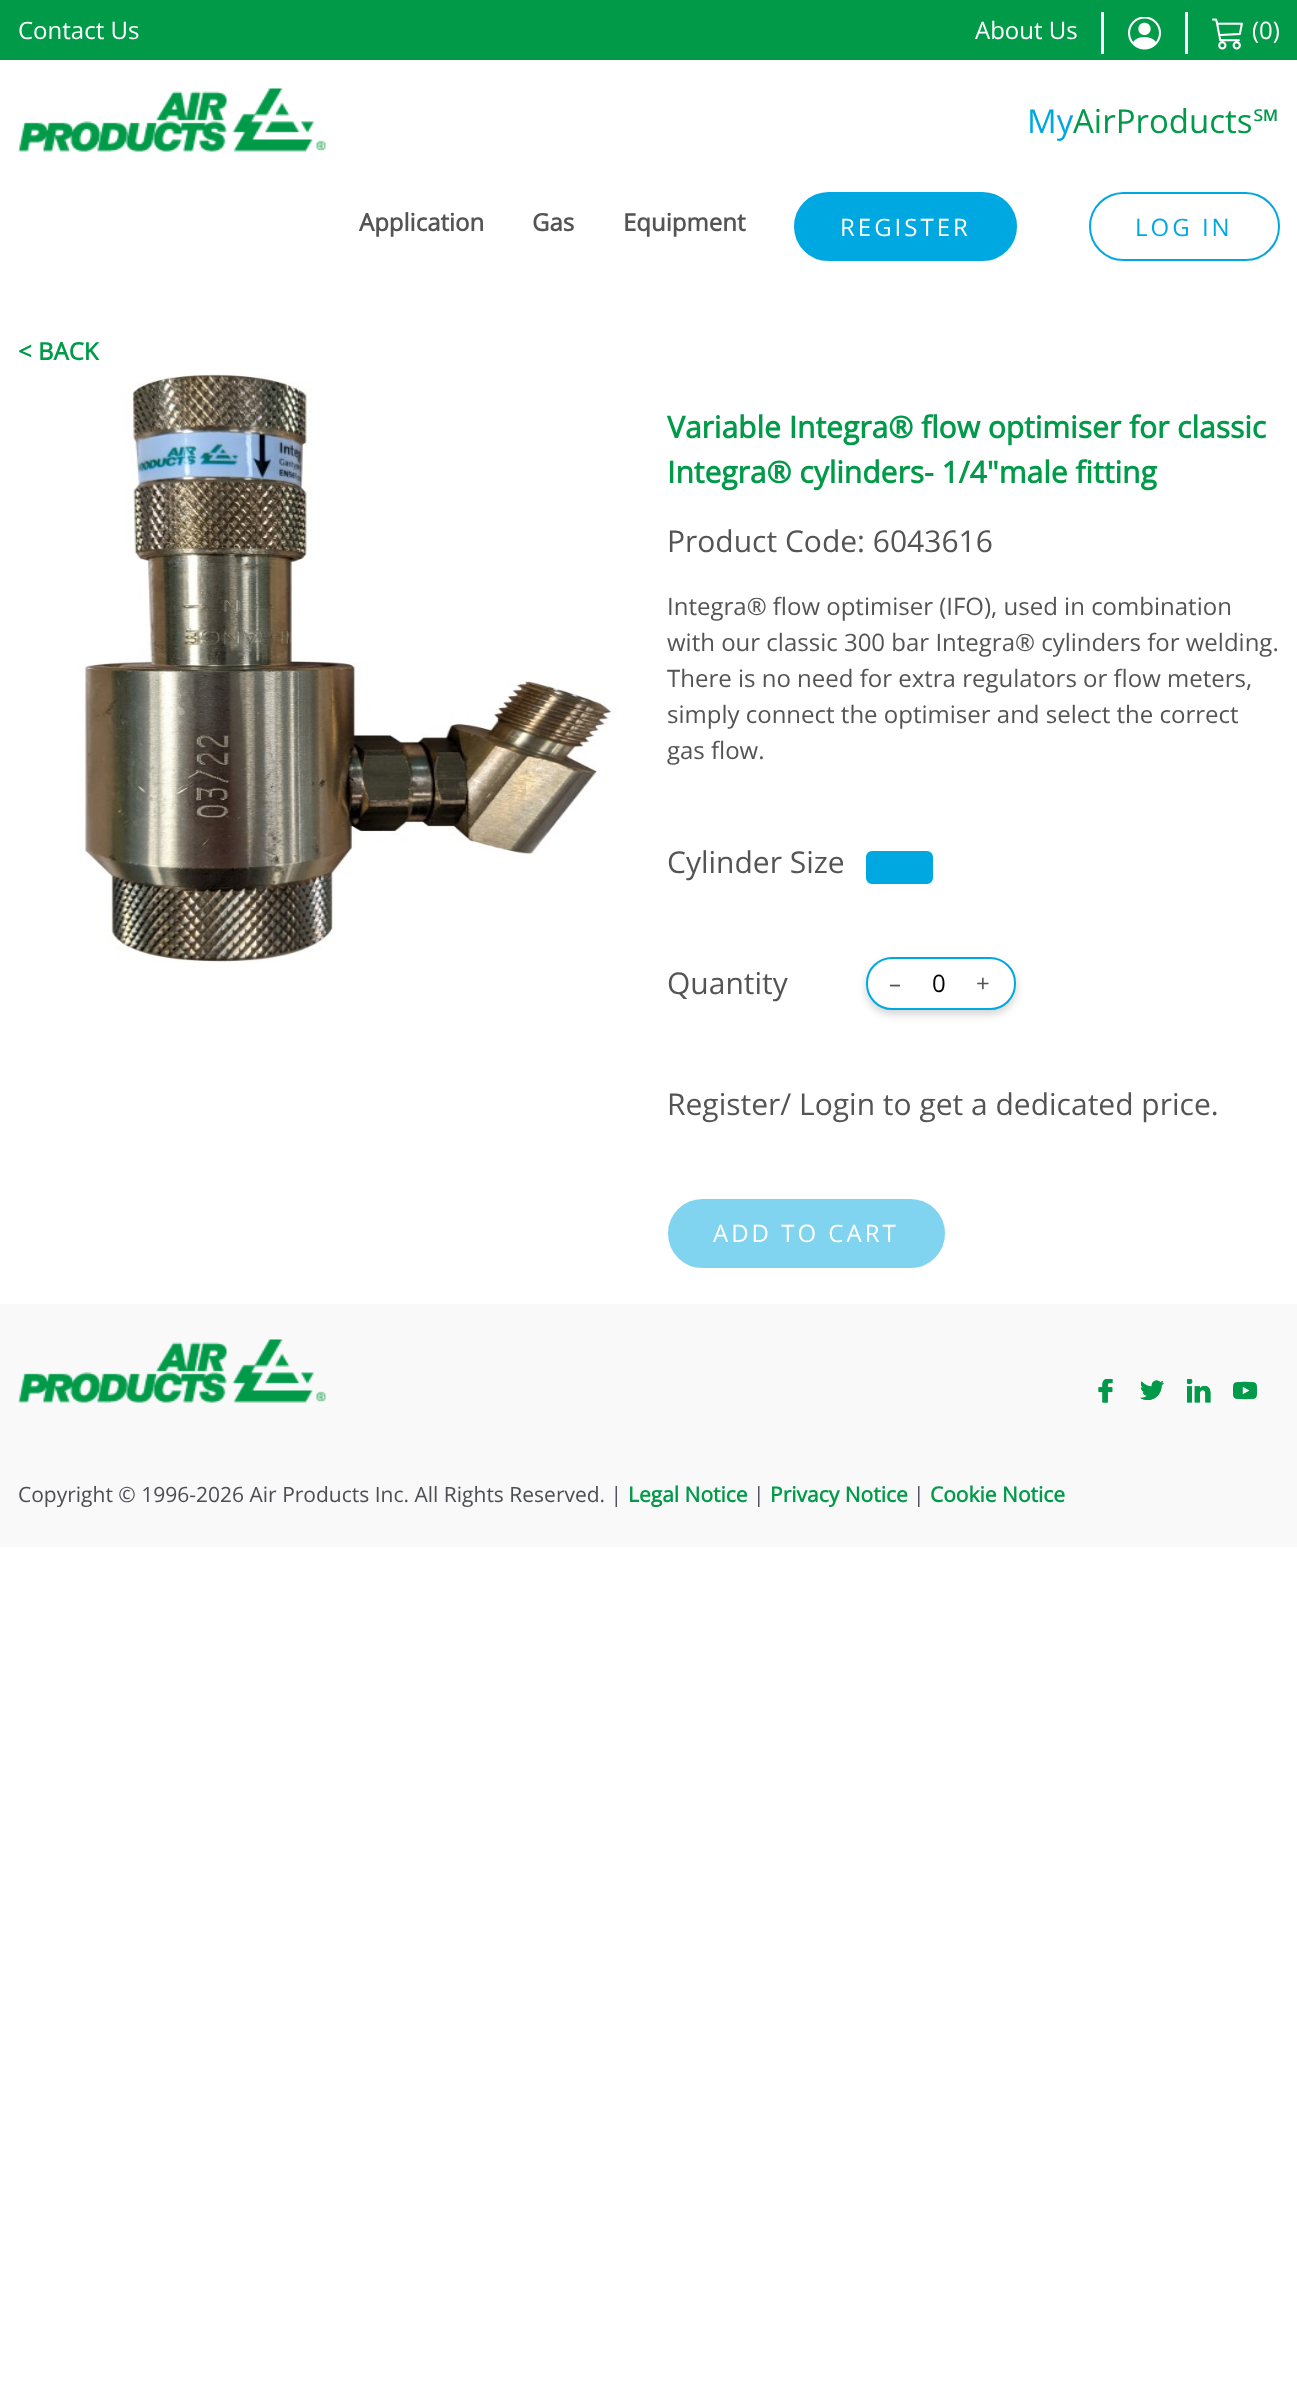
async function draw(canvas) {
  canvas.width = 1297
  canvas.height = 2393
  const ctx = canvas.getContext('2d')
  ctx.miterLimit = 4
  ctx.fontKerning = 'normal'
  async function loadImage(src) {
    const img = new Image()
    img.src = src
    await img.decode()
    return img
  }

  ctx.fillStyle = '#fff'
  ctx.fillRect(0, 0, 1297, 2393)
  ctx.fillStyle = '#009a49'
  ctx.fillRect(0, 0, 1297, 60)
  ctx.font = '24px Open Sans'
  ctx.fillStyle = '#fff'
  ctx.fillText('Contact Us', 18, 39)
  ctx.fillText('About Us', 975, 39)
  ctx.fillRect(1101, 12, 3, 42)
  ctx.drawImage(await loadImage('image0.png'), 1128, 17, 33, 33)
  ctx.fillRect(1185, 12, 3, 42)
  ctx.drawImage(await loadImage('image1.png'), 1212, 18, 31, 32)
  ctx.fillText('(0)', 1252, 39)
  ctx.drawImage(await loadImage('image2.png'), 18, 88, 308, 64)
  ctx.font = '33px Open Sans'
  ctx.fillStyle = '#00a8e1'
  ctx.fillText('My', 1027, 133)
  ctx.fillStyle = '#009a49'
  ctx.fillText('AirProducts℠', 1073, 133)
  ctx.font = 'bold 24px Open Sans'
  ctx.fillStyle = '#545454'
  ctx.fillText('Application', 359, 231)
  ctx.fillText('Gas', 532, 231)
  ctx.fillText('Equipment', 623, 231)
  ctx.fillStyle = '#00a8e1'
  ctx.beginPath()
  ctx.roundRect(795, 193, 221, 67, 33.5)
  ctx.fill()
  ctx.strokeStyle = '#00a8e1'
  ctx.lineWidth = 2
  ctx.stroke()
  ctx.letterSpacing = '3px'
  ctx.font = '24px Open Sans'
  ctx.fillStyle = '#fff'
  ctx.fillText('REGISTER', 840, 236)
  ctx.beginPath()
  ctx.roundRect(1090, 193, 189, 67, 33.5)
  ctx.stroke()
  ctx.fillStyle = '#00a8e1'
  ctx.fillText('LOG IN', 1135, 236)
  ctx.letterSpacing = '0px'
  ctx.font = 'bold 24px Open Sans'
  ctx.fillStyle = '#009a49'
  ctx.fillText('< BACK', 18, 360)
  ctx.drawImage(await loadImage('image3.png'), 78, 374, 539, 589)
  ctx.font = 'bold 30px Open Sans'
  ctx.fillText('Variable Integra® flow optimiser for classic', 667, 438)
  ctx.fillText('Integra® cylinders- 1/4"male fitting', 667, 483)
  ctx.font = '30px Open Sans'
  ctx.fillStyle = '#545454'
  ctx.fillText('Product Code: 6043616', 667, 552)
  ctx.font = '24px Open Sans'
  ctx.fillText('Integra® flow optimiser (IFO), used in combination', 667, 615)
  ctx.fillText('with our classic 300 bar Integra® cylinders for welding.', 667, 651)
  ctx.fillText('There is no need for extra regulators or flow meters,', 667, 687)
  ctx.fillText('simply connect the optimiser and select the correct', 667, 723)
  ctx.fillText('gas flow.', 667, 759)
  ctx.font = '30px Open Sans'
  ctx.fillText('Cylinder Size', 667, 873)
  ctx.fillStyle = '#00a8e1'
  ctx.beginPath()
  ctx.roundRect(867, 852, 65, 31, 5)
  ctx.fill()
  ctx.stroke()
  ctx.fillStyle = '#545454'
  ctx.fillText('Quantity', 667, 994)
  ctx.fillStyle = '#0000002e'
  ctx.filter = 'blur(4px)'
  ctx.beginPath()
  ctx.roundRect(866, 962, 150, 52, 26)
  ctx.fill()
  ctx.filter = 'none'
  ctx.fillStyle = '#fff'
  ctx.beginPath()
  ctx.roundRect(867, 958, 148, 51, 25)
  ctx.fill()
  ctx.stroke()
  ctx.font = '24px Open Sans'
  ctx.fillStyle = '#545454'
  ctx.fillText('–', 889, 992)
  ctx.fillStyle = '#000'
  ctx.fillText('0', 932, 992)
  ctx.fillStyle = '#545454'
  ctx.fillText('+', 976, 992)
  ctx.font = '30px Open Sans'
  ctx.fillText('Register/ Login to get a dedicated price.', 667, 1115)
  ctx.fillStyle = '#80d4f0'
  ctx.beginPath()
  ctx.roundRect(669, 1200, 275, 67, 33.5)
  ctx.fill()
  ctx.strokeStyle = '#80d4f0'
  ctx.stroke()
  ctx.letterSpacing = '3px'
  ctx.font = '24px Open Sans'
  ctx.fillStyle = '#fff'
  ctx.fillText('ADD TO CART', 713, 1242)
  ctx.fillStyle = '#f9f9f9'
  ctx.fillRect(0, 1304, 1297, 243)
  ctx.drawImage(await loadImage('image4.png'), 18, 1339, 308, 64)
  ctx.drawImage(await loadImage('image5.png'), 1098, 1379, 15, 24)
  ctx.drawImage(await loadImage('image6.png'), 1140, 1380, 24, 20)
  ctx.drawImage(await loadImage('image7.png'), 1187, 1379, 24, 24)
  ctx.drawImage(await loadImage('image8.png'), 1233, 1381, 24, 19)
  ctx.letterSpacing = '0px'
  ctx.font = '21px Open Sans'
  ctx.fillStyle = '#4d4e53'
  ctx.fillText('Copyright © 1996-2026 Air Products Inc. All Rights Reserved. |', 18, 1502)
  ctx.font = 'bold 21px Open Sans'
  ctx.fillStyle = '#009a49'
  ctx.fillText('Legal Notice', 628, 1502)
  ctx.font = '21px Open Sans'
  ctx.fillStyle = '#4d4e53'
  ctx.fillText('|', 753, 1502)
  ctx.font = 'bold 21px Open Sans'
  ctx.fillStyle = '#009a49'
  ctx.fillText('Privacy Notice', 770, 1502)
  ctx.font = '21px Open Sans'
  ctx.fillStyle = '#4d4e53'
  ctx.fillText('|', 913, 1502)
  ctx.font = 'bold 21px Open Sans'
  ctx.fillStyle = '#009a49'
  ctx.fillText('Cookie Notice', 930, 1502)
}

draw(document.querySelector('canvas'))
